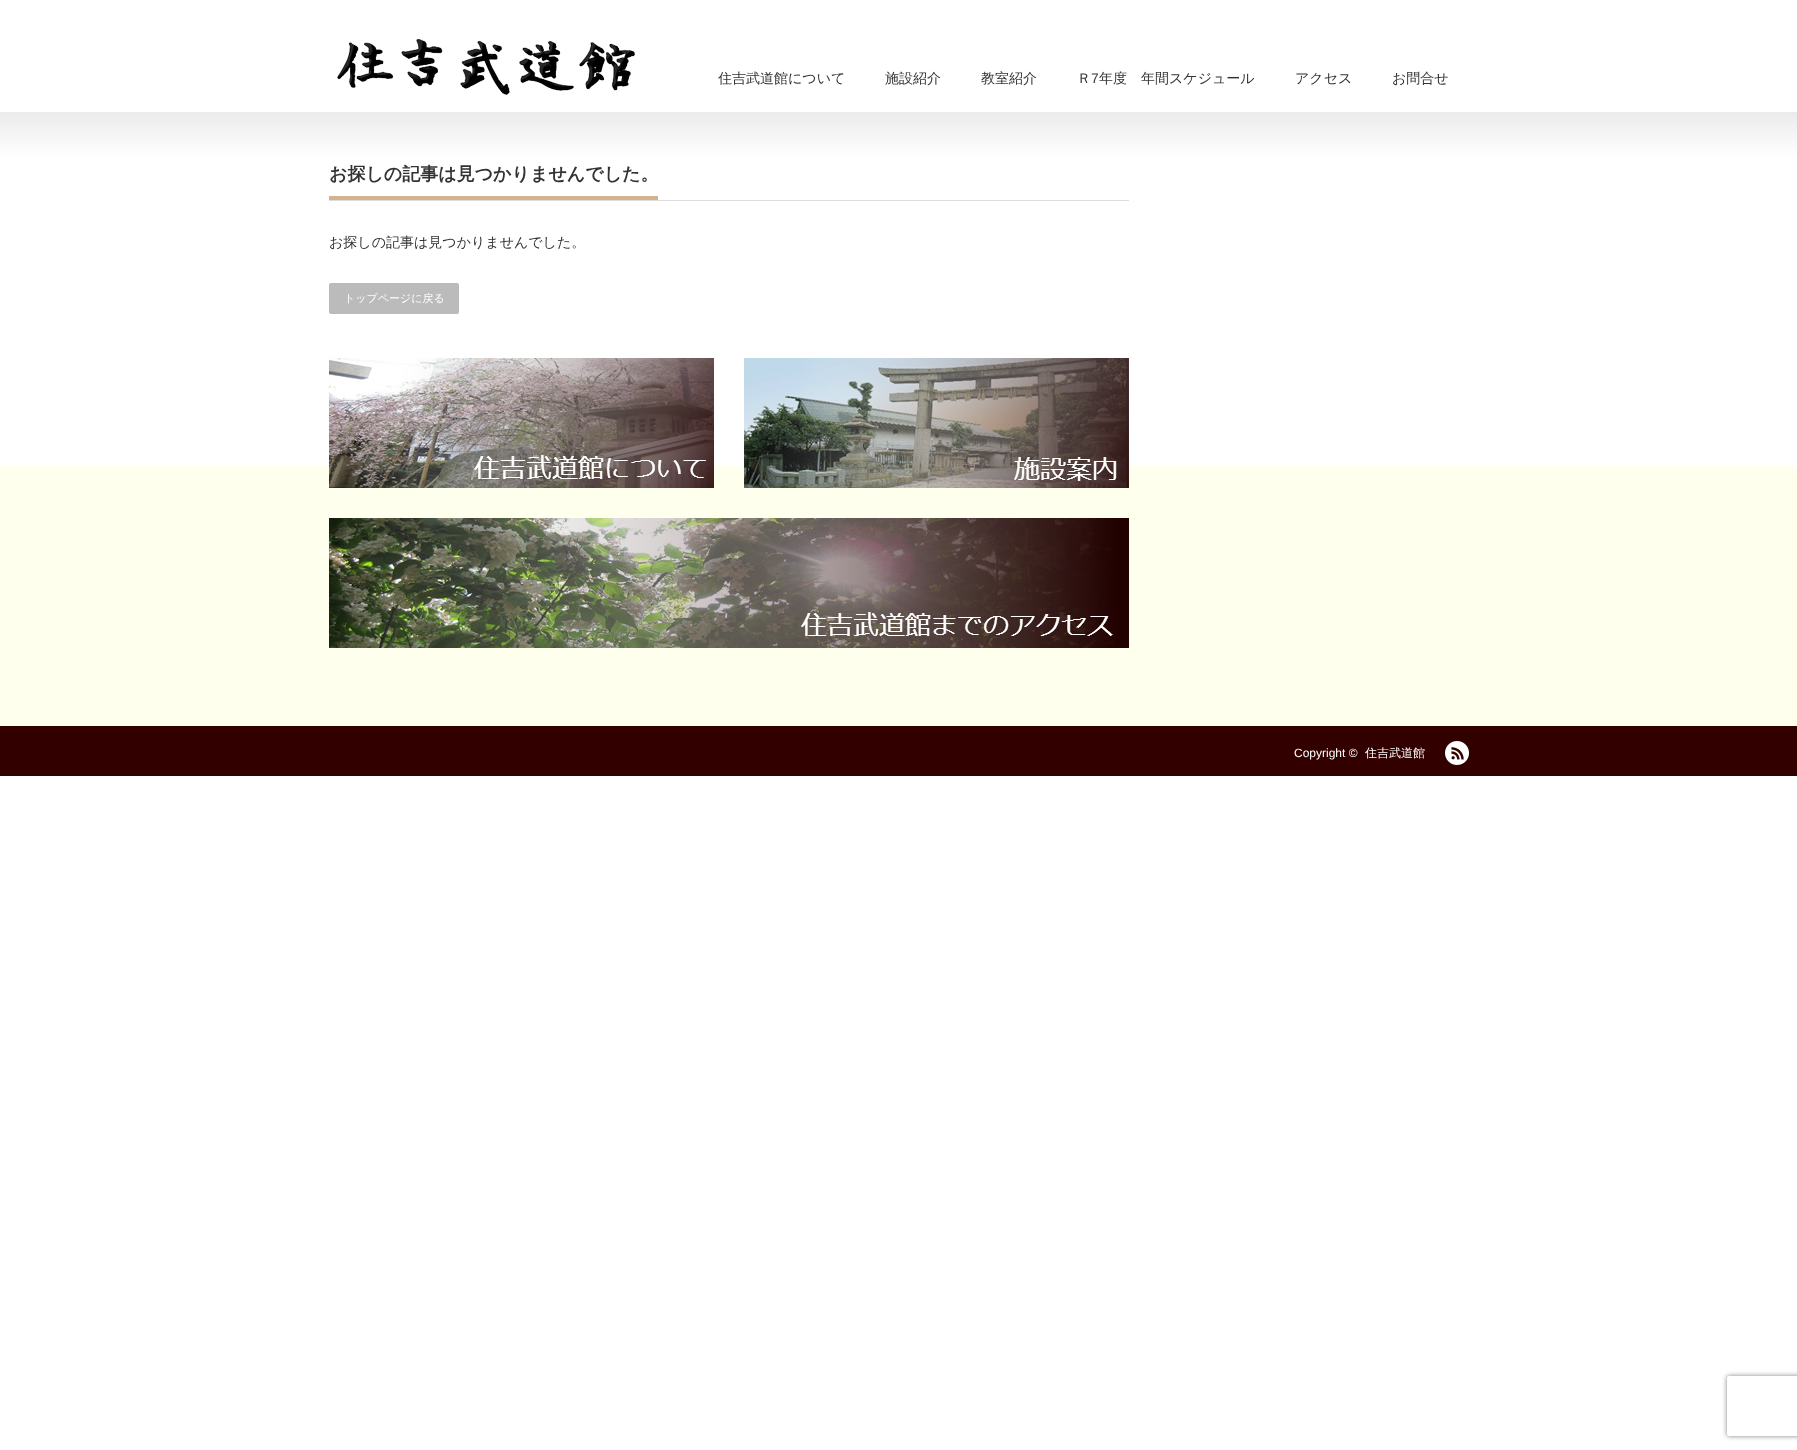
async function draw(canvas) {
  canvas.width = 1797
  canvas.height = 1450
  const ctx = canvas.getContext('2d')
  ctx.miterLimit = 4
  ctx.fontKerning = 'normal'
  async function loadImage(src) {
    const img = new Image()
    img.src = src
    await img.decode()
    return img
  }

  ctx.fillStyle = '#fff'
  ctx.fillRect(0, 0, 1797, 1450)
  ctx.drawImage(await loadImage('image0.png'), 337, 39, 299, 56)
  ctx.font = '500 14px WenQuanYi Zen Hei'
  ctx.fillStyle = '#333'
  ctx.fillText('住吉武道館について', 718, 83)
  ctx.fillText('施設紹介', 885, 83)
  ctx.fillText('教室紹介', 981, 83)
  ctx.fillText('Ｒ', 1077, 83)
  ctx.font = '14px Liberation Sans'
  ctx.fillText('7', 1091, 83)
  ctx.font = '500 14px WenQuanYi Zen Hei'
  ctx.fillText('年度　年間スケジュール', 1099, 83)
  ctx.fillText('アクセス', 1295, 83)
  ctx.fillText('お問合せ', 1392, 83)
  ctx.fillStyle = '#ffe'
  ctx.fillRect(0, 466, 1797, 260)
  ctx.drawImage(await loadImage('image1.png'), 0, 112, 1797, 354)
  ctx.fillStyle = '#ddd'
  ctx.fillRect(329, 200, 800, 1)
  ctx.fillStyle = '#d2b48c'
  ctx.fillRect(329, 196, 329, 4)
  ctx.font = 'bold 18px WenQuanYi Zen Hei'
  ctx.fillStyle = '#333'
  ctx.fillText('お探しの記事は見つかりませんでした。', 329, 180)
  ctx.font = '500 14px WenQuanYi Zen Hei'
  ctx.fillText('お探しの記事は見つかりませんでした。', 329, 247)
  ctx.fillStyle = '#bbb'
  ctx.beginPath()
  ctx.roundRect(329, 283, 130, 31, 2)
  ctx.fill()
  ctx.font = '500 11px WenQuanYi Zen Hei'
  ctx.fillStyle = '#fff'
  ctx.fillText('トップページに戻る', 344, 302)
  ctx.drawImage(await loadImage('image2.png'), 329, 358, 385, 130)
  ctx.drawImage(await loadImage('image3.png'), 744, 358, 385, 130)
  ctx.drawImage(await loadImage('image4.png'), 329, 518, 800, 130)
  ctx.fillStyle = '#300'
  ctx.fillRect(0, 726, 1797, 50)
  ctx.font = '12px Liberation Sans'
  ctx.fillStyle = '#fff'
  ctx.fillText('Copyright ©', 1294, 757)
  ctx.font = '500 12px WenQuanYi Zen Hei'
  ctx.fillText('住吉武道館', 1365, 757)
  ctx.drawImage(await loadImage('image5.png'), 1445, 741, 24, 24)
  ctx.save()
  ctx.beginPath()
  ctx.moveTo(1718, 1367)
  ctx.lineTo(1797, 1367)
  ctx.lineTo(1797, 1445)
  ctx.lineTo(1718, 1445)
  ctx.closePath()
  ctx.moveTo(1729, 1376)
  ctx.lineTo(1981, 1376)
  ctx.bezierCurveTo(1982, 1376, 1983, 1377, 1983, 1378)
  ctx.lineTo(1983, 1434)
  ctx.bezierCurveTo(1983, 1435, 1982, 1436, 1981, 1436)
  ctx.lineTo(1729, 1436)
  ctx.bezierCurveTo(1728, 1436, 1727, 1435, 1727, 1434)
  ctx.lineTo(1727, 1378)
  ctx.bezierCurveTo(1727, 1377, 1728, 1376, 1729, 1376)
  ctx.closePath()
  ctx.clip('evenodd')
  ctx.fillStyle = '#808080'
  ctx.filter = 'blur(2.5px)'
  ctx.beginPath()
  ctx.roundRect(1727, 1376, 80, 60, 2)
  ctx.fill()
  ctx.filter = 'none'
  ctx.restore()
}

draw(document.querySelector('canvas'))
